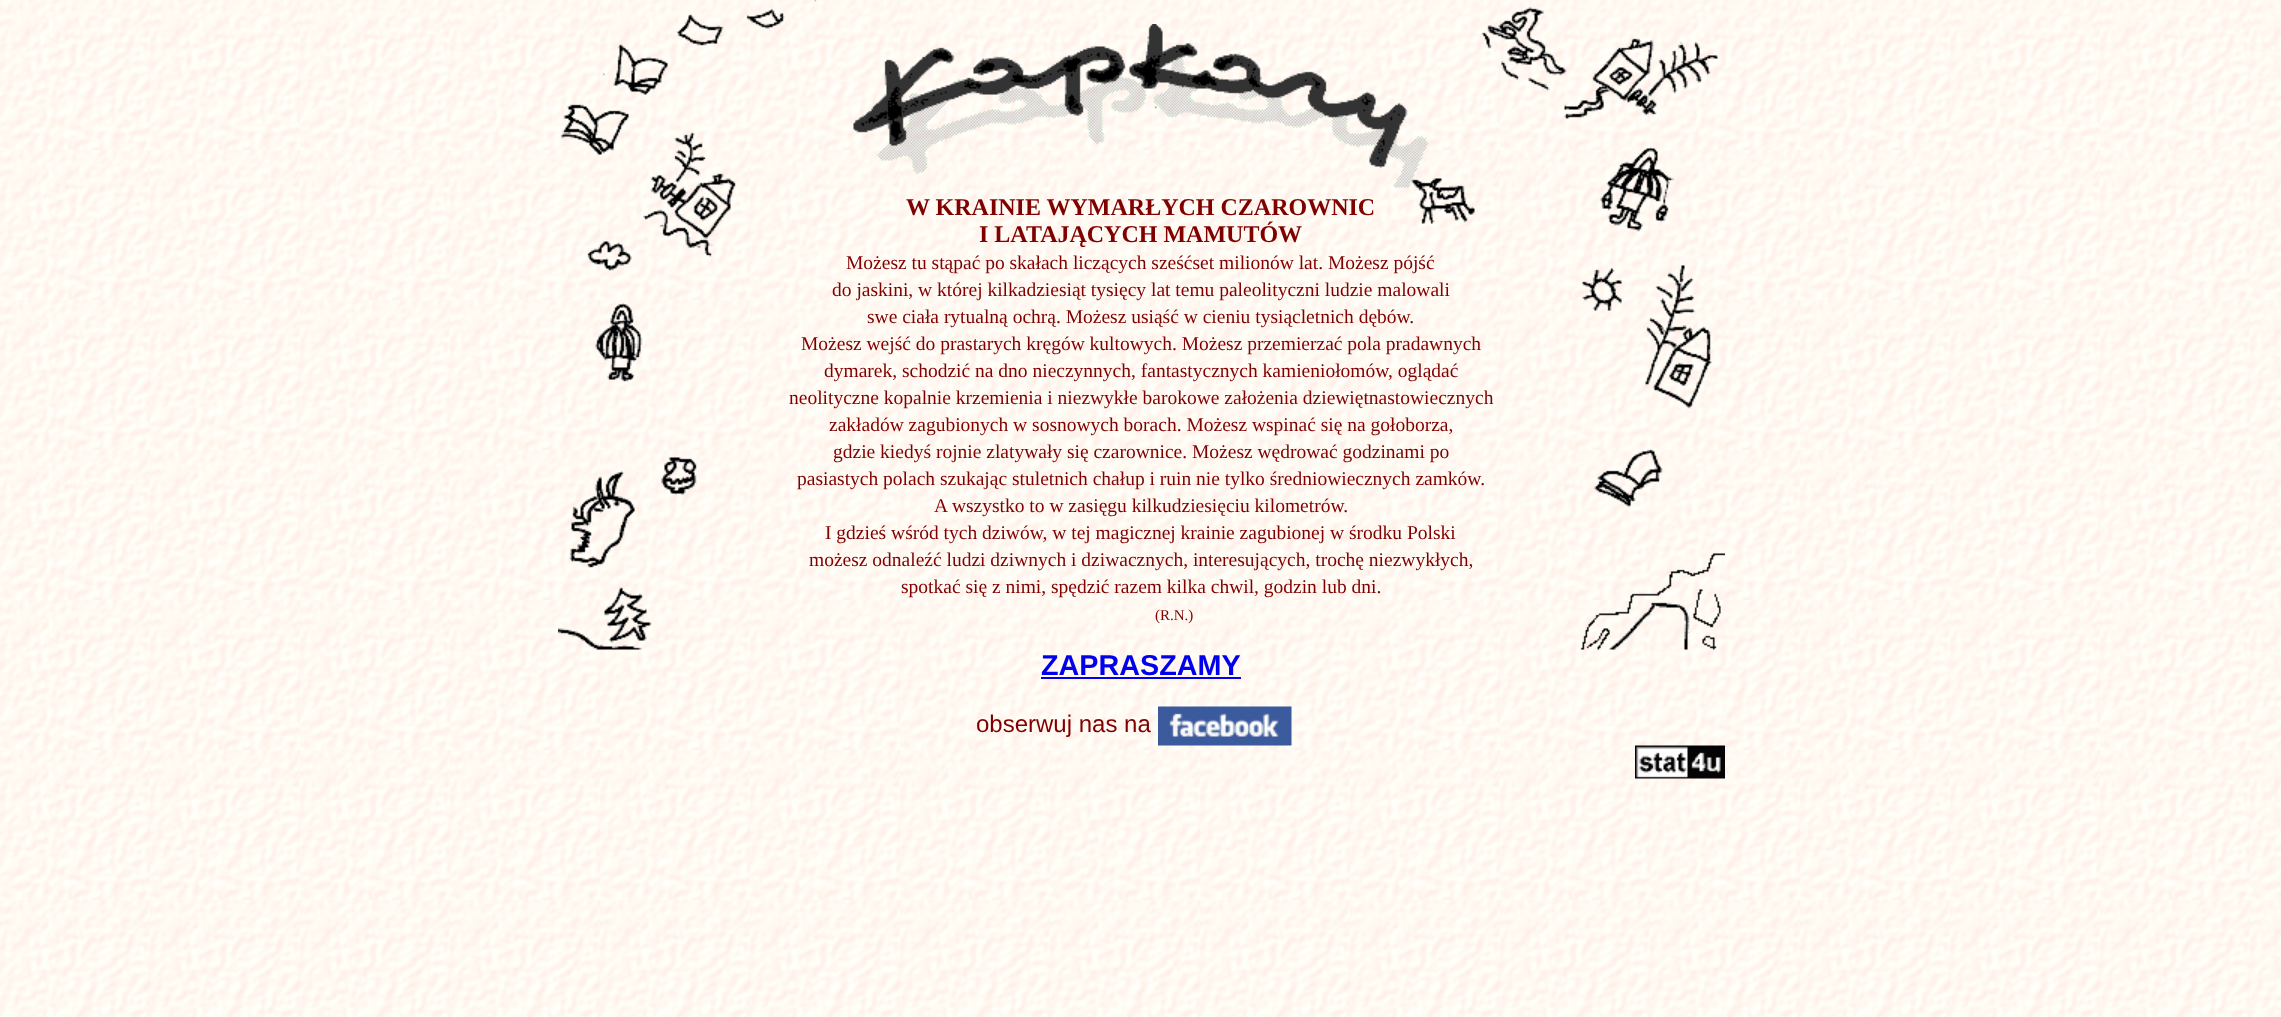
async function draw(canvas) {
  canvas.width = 2281
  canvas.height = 1017
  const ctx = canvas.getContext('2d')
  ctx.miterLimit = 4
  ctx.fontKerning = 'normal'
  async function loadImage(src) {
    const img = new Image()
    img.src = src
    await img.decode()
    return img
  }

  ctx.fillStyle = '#fff'
  ctx.fillRect(0, 0, 2281, 1017)
  ctx.drawImage(await loadImage('image0.png'), 0, 0, 2281, 1017)
  ctx.drawImage(await loadImage('image1.png'), 558, 0, 1167, 650)
  ctx.drawImage(await loadImage('image2.png'), 853, 24, 575, 164)
  ctx.font = 'bold 24px Liberation Serif'
  ctx.fillStyle = '#800000'
  ctx.fillText('W KRAINIE WYMARŁYCH CZAROWNIC', 906, 215)
  ctx.fillText('I LATAJĄCYCH MAMUTÓW', 979, 242)
  ctx.font = '19.5px Liberation Serif'
  ctx.fillText('Możesz tu stąpać po skałach liczących sześćset milionów lat. Możesz pójść', 846, 269)
  ctx.fillText('do jaskini, w której kilkadziesiąt tysięcy lat temu paleolityczni ludzie malowali', 832, 296)
  ctx.fillText('swe ciała rytualną ochrą. Możesz usiąść w cieniu tysiącletnich dębów.', 867, 323)
  ctx.fillText('Możesz wejść do prastarych kręgów kultowych. Możesz przemierzać pola pradawnych', 801, 350)
  ctx.fillText('dymarek, schodzić na dno nieczynnych, fantastycznych kamieniołomów, oglądać', 824, 377)
  ctx.fillText('neolityczne kopalnie krzemienia i niezwykłe barokowe założenia dziewiętnastowiecznych', 789, 404)
  ctx.fillText('zakładów zagubionych w sosnowych borach. Możesz wspinać się na gołoborza,', 829, 431)
  ctx.fillText('gdzie kiedyś rojnie zlatywały się czarownice. Możesz wędrować godzinami po', 833, 458)
  ctx.fillText('pasiastych polach szukając stuletnich chałup i ruin nie tylko średniowiecznych zamków.', 797, 485)
  ctx.fillText('A wszystko to w zasięgu kilkudziesięciu kilometrów.', 934, 512)
  ctx.fillText('I gdzieś wśród tych dziwów, w tej magicznej krainie zagubionej w środku Polski', 825, 539)
  ctx.fillText('możesz odnaleźć ludzi dziwnych i dziwacznych, interesujących, trochę niezwykłych,', 809, 566)
  ctx.fillText('spotkać się z nimi, spędzić razem kilka chwil, godzin lub dni.', 901, 593)
  ctx.font = '15px Liberation Serif'
  ctx.fillText('(R.N.)', 1155, 620)
  ctx.font = 'bold 28.75px Liberation Sans'
  ctx.fillStyle = '#00e'
  ctx.fillText('ZAPRASZAMY', 1041, 675)
  ctx.fillRect(1041, 677, 200, 2)
  ctx.font = '24px Liberation Sans'
  ctx.fillStyle = '#800000'
  ctx.fillText('obserwuj nas na', 976, 732)
  ctx.drawImage(await loadImage('image3.png'), 1158, 706, 134, 40)
  ctx.drawImage(await loadImage('image4.png'), 1635, 745, 90, 34)
}

draw(document.querySelector('canvas'))
